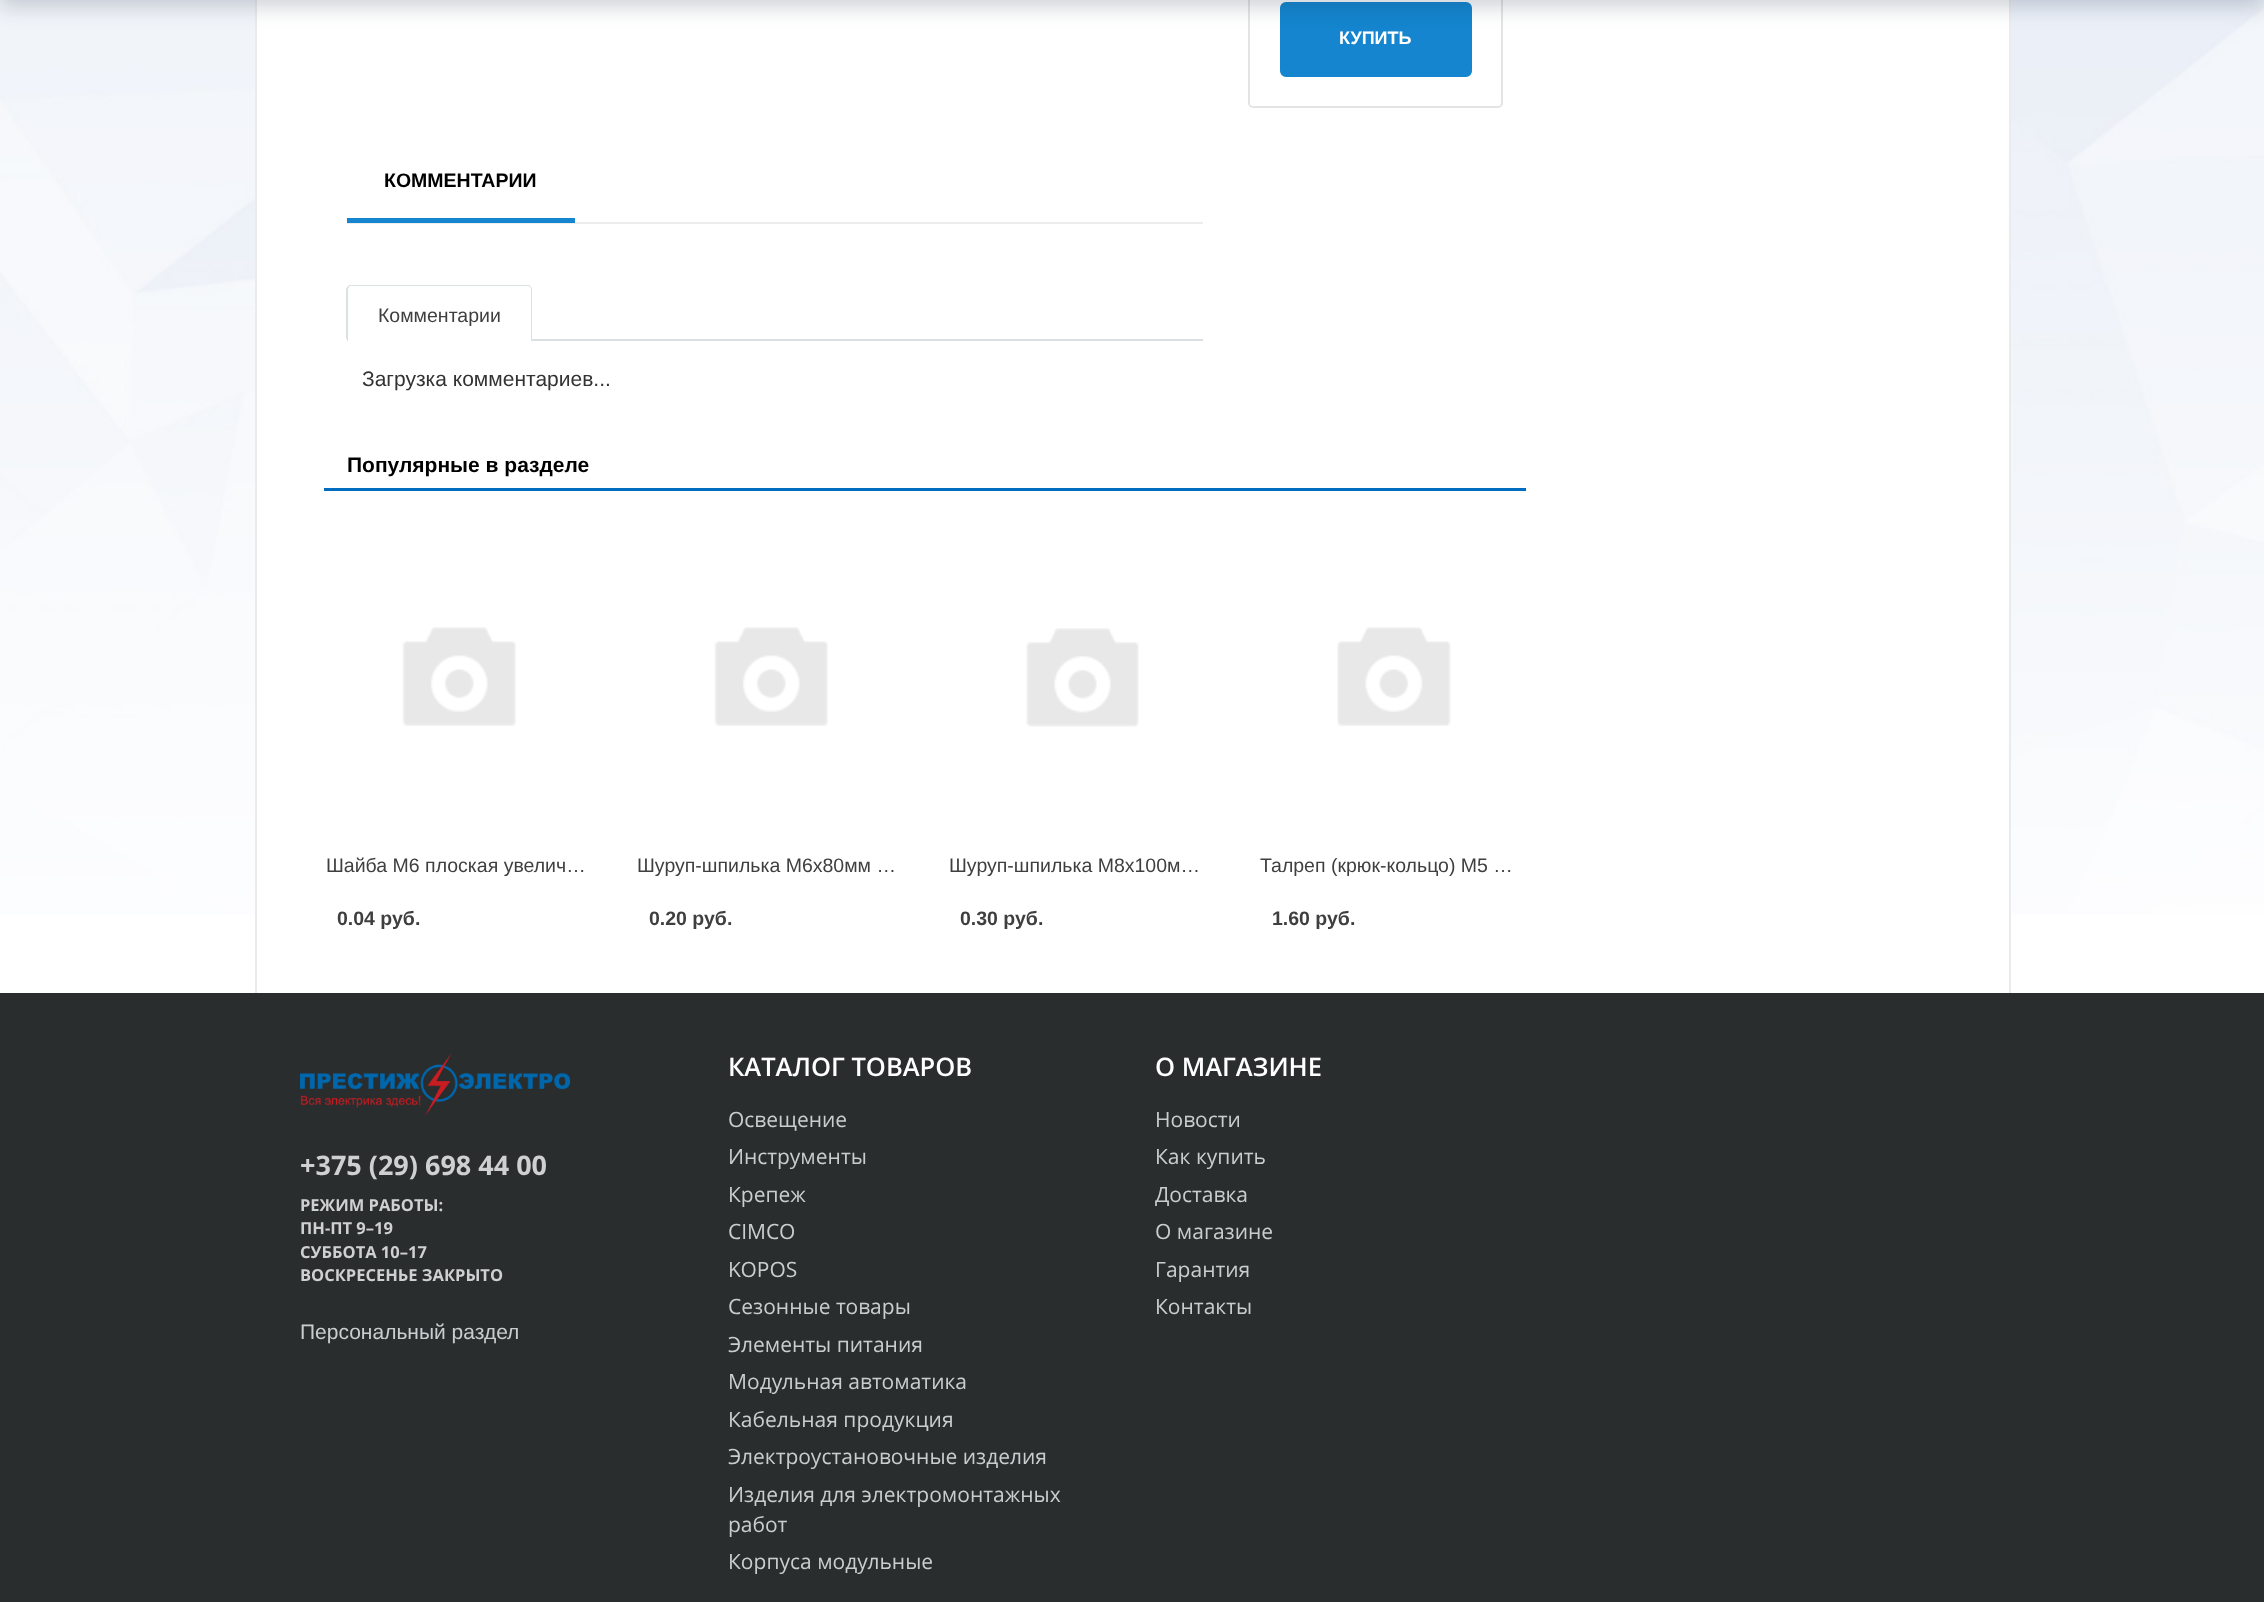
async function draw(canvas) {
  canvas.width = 2264
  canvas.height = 1602
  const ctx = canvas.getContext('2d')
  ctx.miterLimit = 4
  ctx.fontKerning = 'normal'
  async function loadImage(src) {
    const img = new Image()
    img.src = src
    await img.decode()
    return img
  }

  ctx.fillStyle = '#fff'
  ctx.fillRect(0, 0, 2264, 1602)
  ctx.drawImage(await loadImage('image0.png'), 0, 0, 2264, 915)
  ctx.fillRect(257, 0, 1752, 915)
  ctx.fillStyle = '#eaebec'
  ctx.fillRect(2009, 0, 2, 993)
  ctx.fillRect(255, 0, 2, 993)
  ctx.beginPath()
  ctx.roundRect(1249, -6, 253, 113, 4)
  ctx.strokeStyle = '#e4e4e4'
  ctx.lineWidth = 2
  ctx.stroke()
  ctx.fillStyle = '#1485ce'
  ctx.beginPath()
  ctx.roundRect(1281, 3, 190, 73, 5)
  ctx.fill()
  ctx.strokeStyle = '#1485ce'
  ctx.stroke()
  ctx.fillStyle = '#20364a3b'
  ctx.filter = 'blur(10.5px)'
  ctx.beginPath()
  ctx.rect(0, -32, 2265, 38)
  ctx.fill()
  ctx.filter = 'none'
  ctx.font = 'bold 18px Liberation Sans'
  ctx.fillStyle = '#fff'
  ctx.fillText('КУПИТЬ', 1339, 44)
  ctx.fillStyle = '#ededed'
  ctx.fillRect(347, 222, 856, 2)
  ctx.font = 'bold 19.5px Liberation Sans'
  ctx.fillStyle = '#000'
  ctx.fillText('КОММЕНТАРИИ', 384, 187)
  ctx.fillStyle = '#1485ce'
  ctx.fillRect(347, 218, 228, 5)
  ctx.fillStyle = '#d9e1e3'
  ctx.fillRect(347, 339, 856, 2)
  ctx.beginPath()
  ctx.moveTo(351, 285)
  ctx.lineTo(528, 285)
  ctx.bezierCurveTo(530, 285, 532, 287, 532, 290)
  ctx.lineTo(532, 339)
  ctx.lineTo(346, 339)
  ctx.lineTo(346, 290)
  ctx.bezierCurveTo(346, 287, 349, 285, 351, 285)
  ctx.closePath()
  ctx.moveTo(351, 286)
  ctx.lineTo(528, 286)
  ctx.bezierCurveTo(530, 286, 531, 288, 531, 290)
  ctx.lineTo(531, 339)
  ctx.lineTo(348, 339)
  ctx.lineTo(348, 290)
  ctx.bezierCurveTo(348, 288, 349, 286, 351, 286)
  ctx.closePath()
  ctx.fill('evenodd')
  ctx.fillStyle = '#fff'
  ctx.fillRect(348, 339, 183, 2)
  ctx.font = '19.5px Liberation Sans'
  ctx.fillStyle = '#3f3f3f'
  ctx.fillText('Комментарии', 378, 322)
  ctx.font = '21px Liberation Sans'
  ctx.fillStyle = '#333'
  ctx.fillText('Загрузка комментариев...', 362, 386)
  ctx.fillStyle = '#006cc0'
  ctx.fillRect(324, 488, 1202, 3)
  ctx.font = 'bold 21px Liberation Sans'
  ctx.fillStyle = '#000'
  ctx.fillText('Популярные в разделе', 347, 472)
  ctx.drawImage(await loadImage('image1.png'), 402, 627, 114, 99)
  ctx.font = '19.5px Liberation Sans'
  ctx.fillStyle = '#3f3f3f'
  ctx.fillText('Шайба М6 плоская увелич…', 326, 872)
  ctx.font = 'bold 19.5px Liberation Sans'
  ctx.fillText('0.04 руб.', 337, 925)
  ctx.drawImage(await loadImage('image2.png'), 714, 627, 114, 99)
  ctx.font = '19.5px Liberation Sans'
  ctx.fillText('Шуруп-шпилька М6х80мм …', 637, 872)
  ctx.font = 'bold 19.5px Liberation Sans'
  ctx.fillText('0.20 руб.', 649, 925)
  ctx.drawImage(await loadImage('image3.png'), 1026, 628, 113, 99)
  ctx.font = '19.5px Liberation Sans'
  ctx.fillText('Шуруп-шпилька М8х100м…', 949, 872)
  ctx.font = 'bold 19.5px Liberation Sans'
  ctx.fillText('0.30 руб.', 960, 925)
  ctx.drawImage(await loadImage('image4.png'), 1337, 627, 114, 99)
  ctx.font = '19.5px Liberation Sans'
  ctx.fillText('Талреп (крюк-кольцо) М5 …', 1260, 872)
  ctx.font = 'bold 19.5px Liberation Sans'
  ctx.fillText('1.60 руб.', 1272, 925)
  ctx.fillStyle = '#292d2e'
  ctx.fillRect(0, 993, 2264, 609)
  ctx.drawImage(await loadImage('image5.png'), 300, 1053, 270, 63)
  ctx.font = 'bold 27px Open Sans'
  ctx.fillStyle = '#cfd0d0'
  ctx.fillText('+375 (29) 698 44 00', 300, 1175)
  ctx.font = 'bold 16.5px Open Sans'
  ctx.fillText('РЕЖИМ РАБОТЫ:', 300, 1211)
  ctx.fillText('ПН-ПТ 9–19', 300, 1234)
  ctx.fillText('СУББОТА 10–17', 300, 1258)
  ctx.fillText('ВОСКРЕСЕНЬЕ ЗАКРЫТО', 300, 1281)
  ctx.font = '21px Liberation Sans'
  ctx.fillStyle = '#c8cece'
  ctx.fillText('Персональный раздел', 300, 1339)
  ctx.font = '600 25.5px Open Sans'
  ctx.fillStyle = '#fff'
  ctx.fillText('КАТАЛОГ ТОВАРОВ', 728, 1076)
  ctx.font = '21px Open Sans'
  ctx.fillStyle = '#c8cece'
  ctx.fillText('Освещение', 728, 1127)
  ctx.fillText('Инструменты', 728, 1164)
  ctx.fillText('Крепеж', 728, 1202)
  ctx.fillText('CIMCO', 728, 1239)
  ctx.fillText('KOPOS', 728, 1277)
  ctx.fillText('Сезонные товары', 728, 1314)
  ctx.fillText('Элементы питания', 728, 1352)
  ctx.fillText('Модульная автоматика', 728, 1389)
  ctx.fillText('Кабельная продукция', 728, 1427)
  ctx.fillText('Электроустановочные изделия', 728, 1464)
  ctx.fillText('Изделия для электромонтажных', 728, 1502)
  ctx.fillText('работ', 728, 1532)
  ctx.fillText('Корпуса модульные', 728, 1569)
  ctx.font = '600 25.5px Open Sans'
  ctx.fillStyle = '#fff'
  ctx.fillText('О МАГАЗИНЕ', 1155, 1076)
  ctx.font = '21px Open Sans'
  ctx.fillStyle = '#c8cece'
  ctx.fillText('Новости', 1155, 1127)
  ctx.fillText('Как купить', 1155, 1164)
  ctx.fillText('Доставка', 1155, 1202)
  ctx.fillText('О магазине', 1155, 1239)
  ctx.fillText('Гарантия', 1155, 1277)
  ctx.fillText('Контакты', 1155, 1314)
}

draw(document.querySelector('canvas'))
